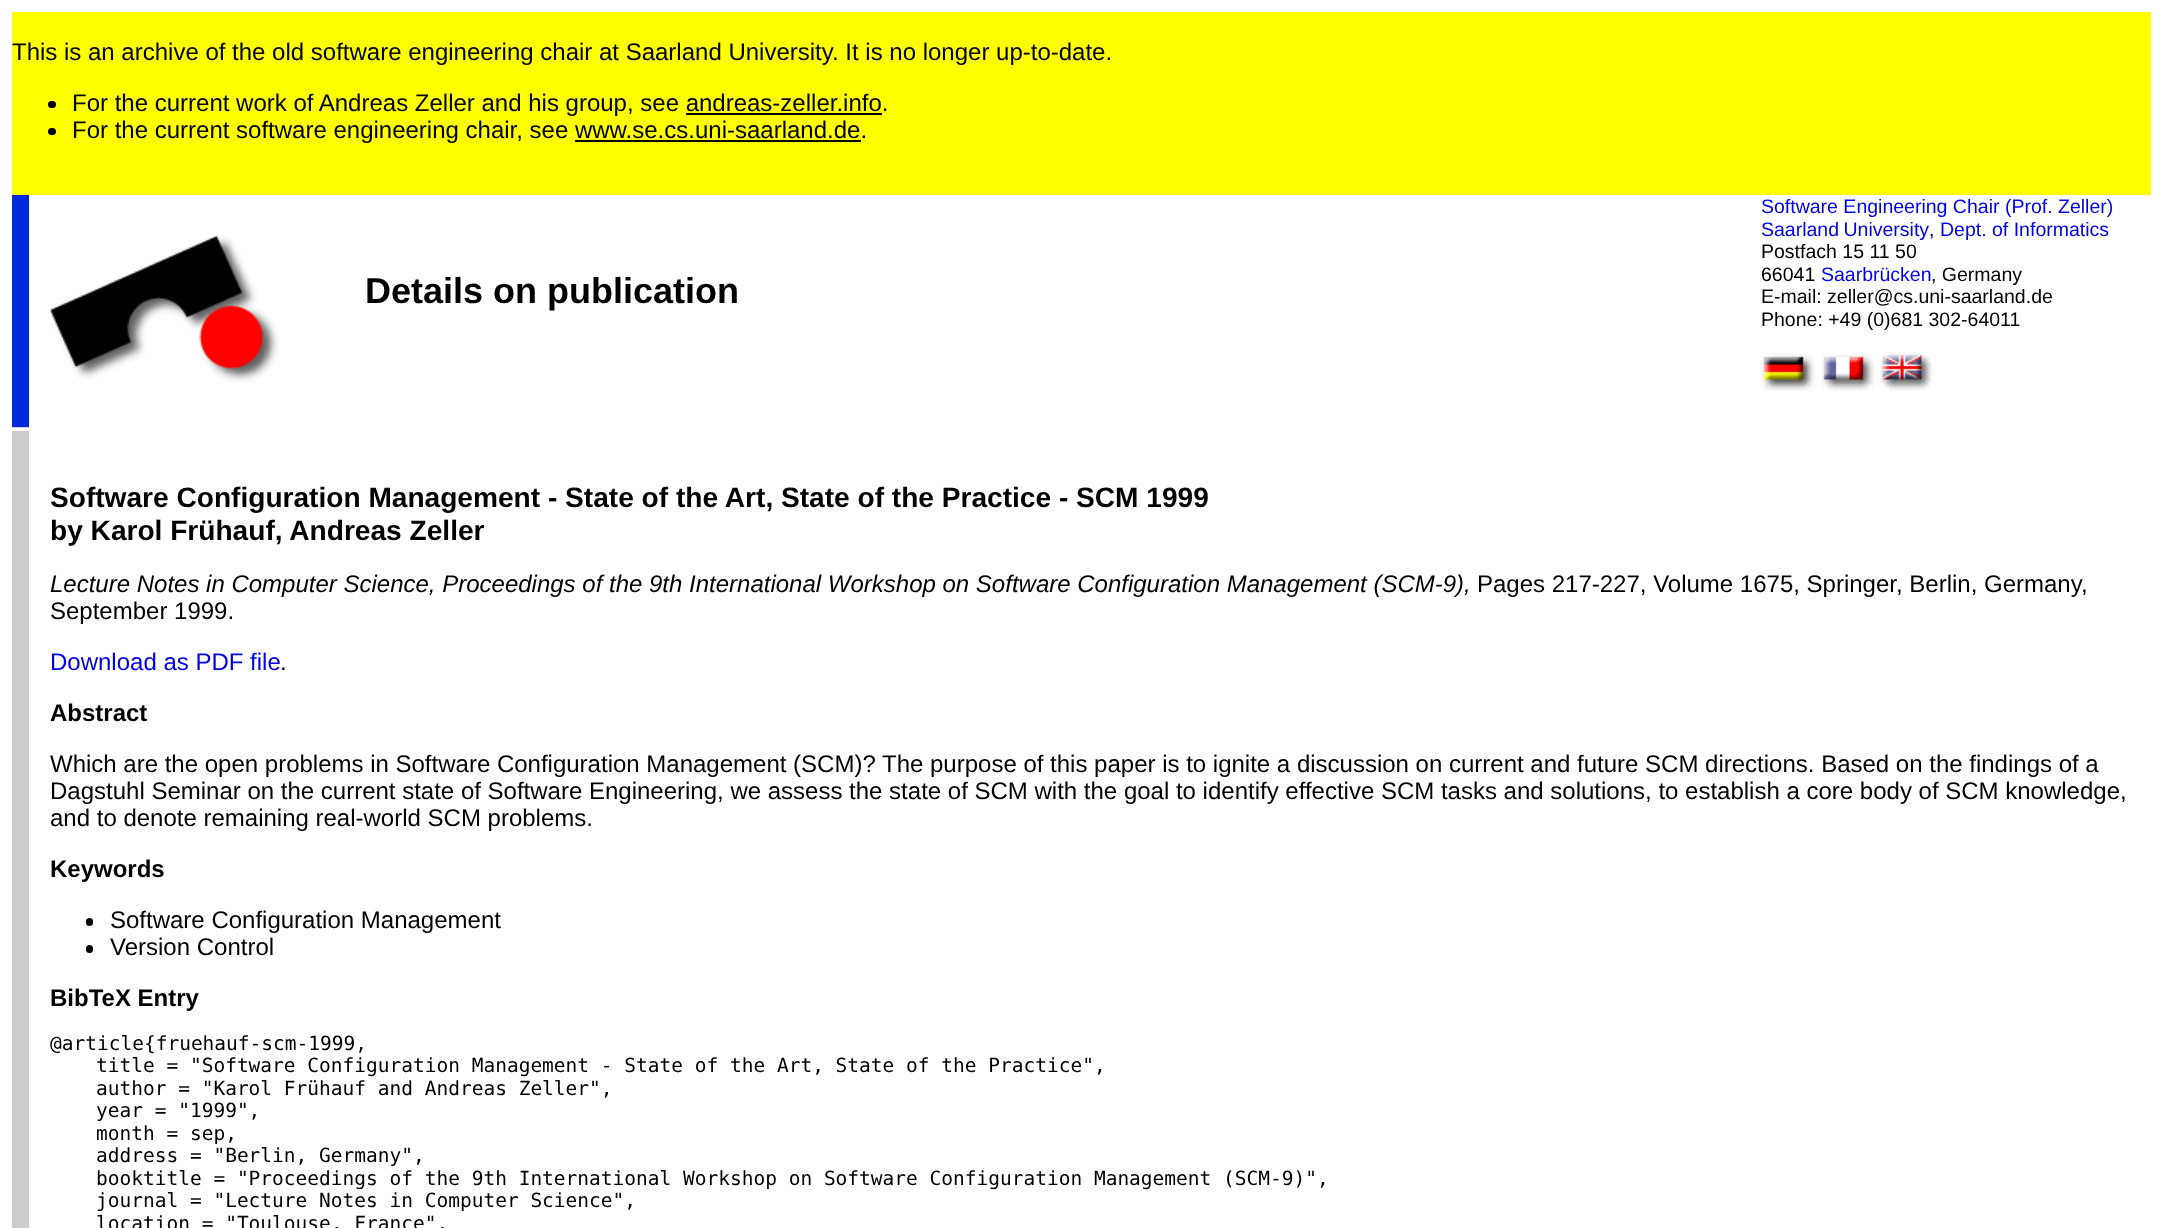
async function draw(canvas) {
  canvas.width = 2162
  canvas.height = 1228
  const ctx = canvas.getContext('2d')
  ctx.miterLimit = 4
  ctx.fontKerning = 'normal'
  async function loadImage(src) {
    const img = new Image()
    img.src = src
    await img.decode()
    return img
  }

  ctx.fillStyle = '#fff'
  ctx.fillRect(0, 0, 2162, 1228)
  ctx.fillStyle = '#ff0'
  ctx.fillRect(12, 12, 2139, 183)
  ctx.font = '24px Liberation Sans'
  ctx.fillStyle = '#000'
  ctx.fillText('This is an archive of the old software engineering chair at Saarland University. It is no longer up-to-date.', 12, 60)
  ctx.beginPath()
  ctx.roundRect(48, 101, 8, 7, 3.5)
  ctx.fill()
  ctx.fillText('For the current work of Andreas Zeller and his group, see andreas-zeller.info.', 72, 111)
  ctx.fillRect(686, 113, 196, 2)
  ctx.beginPath()
  ctx.roundRect(48, 128, 8, 7, 3.5)
  ctx.fill()
  ctx.fillText('For the current software engineering chair, see www.se.cs.uni-saarland.de.', 72, 138)
  ctx.fillRect(575, 140, 286, 2)
  ctx.fillStyle = '#002adc'
  ctx.fillRect(12, 195, 17, 232)
  ctx.drawImage(await loadImage('image0.png'), 49, 235, 230, 148)
  ctx.font = 'bold 36px Liberation Sans'
  ctx.fillStyle = '#000'
  ctx.fillText('Details on publication', 365, 303)
  ctx.font = '19.5px Liberation Sans'
  ctx.fillStyle = '#00e'
  ctx.fillText('Software Engineering Chair (Prof. Zeller)', 1761, 213)
  ctx.wordSpacing = '-1px'
  ctx.fillText('Saarland University', 1761, 236)
  ctx.wordSpacing = '0px'
  ctx.fillStyle = '#000'
  ctx.fillText(',', 1929, 236)
  ctx.fillStyle = '#00e'
  ctx.fillText('Dept. of Informatics', 1940, 236)
  ctx.fillStyle = '#000'
  ctx.fillText('Postfach 15 11 50', 1761, 258)
  ctx.fillText('66041', 1761, 281)
  ctx.fillStyle = '#00e'
  ctx.fillText('Saarbrücken', 1821, 281)
  ctx.fillStyle = '#000'
  ctx.fillText(', Germany', 1931, 281)
  ctx.fillText('E-mail: zeller@cs.uni-saarland.de', 1761, 303)
  ctx.fillText('Phone: +49 (0)681 302-64011', 1761, 326)
  ctx.drawImage(await loadImage('image1.png'), 1761, 354, 54, 37)
  ctx.drawImage(await loadImage('image2.png'), 1821, 354, 54, 37)
  ctx.drawImage(await loadImage('image3.png'), 1880, 353, 53, 38)
  ctx.fillStyle = '#cbcbcb'
  ctx.fillRect(12, 427, 17, 801)
  ctx.fillStyle = '#fff'
  ctx.fillRect(12, 428, 17, 3)
  ctx.font = 'bold 28.1px Liberation Sans'
  ctx.fillStyle = '#000'
  ctx.fillText('Software Configuration Management - State of the Art, State of the Practice - SCM 1999', 50, 507)
  ctx.fillText('by Karol Frühauf, Andreas Zeller', 50, 540)
  ctx.font = 'italic 24px Liberation Sans'
  ctx.fillText('Lecture Notes in Computer Science, Proceedings of the 9th International Workshop on Software Configuration Management (SCM-9),', 50, 592)
  ctx.font = '24px Liberation Sans'
  ctx.fillText('Pages 217-227, Volume 1675, Springer, Berlin, Germany,', 1477, 592)
  ctx.fillText('September 1999.', 50, 619)
  ctx.fillStyle = '#00e'
  ctx.fillText('Download as PDF file', 50, 670)
  ctx.fillStyle = '#000'
  ctx.fillText('.', 280, 670)
  ctx.font = 'bold 24px Liberation Sans'
  ctx.fillText('Abstract', 50, 721)
  ctx.font = '24px Liberation Sans'
  ctx.fillText('Which are the open problems in Software Configuration Management (SCM)? The purpose of this paper is to ignite a discussion on current and future SCM directions. Based on the findings of a', 50, 772)
  ctx.fillText('Dagstuhl Seminar on the current state of Software Engineering, we assess the state of SCM with the goal to identify effective SCM tasks and solutions, to establish a core body of SCM knowledge,', 50, 799)
  ctx.fillText('and to denote remaining real-world SCM problems.', 50, 826)
  ctx.font = 'bold 24px Liberation Sans'
  ctx.fillText('Keywords', 50, 877)
  ctx.beginPath()
  ctx.roundRect(86, 918, 7, 8, 3.5)
  ctx.fill()
  ctx.font = '24px Liberation Sans'
  ctx.fillText('Software Configuration Management', 110, 928)
  ctx.beginPath()
  ctx.roundRect(86, 945, 7, 8, 3.5)
  ctx.fill()
  ctx.fillText('Version Control', 110, 955)
  ctx.font = 'bold 24px Liberation Sans'
  ctx.fillText('BibTeX Entry', 50, 1006)
  ctx.font = '19.5px DejaVu Sans Mono'
  ctx.fillText('@article{fruehauf-scm-1999,', 50, 1050)
  ctx.fillText('title = "Software Configuration Management - State of the Art, State of the Practice",', 96, 1072)
  ctx.fillText('author = "Karol Frühauf and Andreas Zeller",', 96, 1095)
  ctx.fillText('year = "1999",', 96, 1117)
  ctx.fillText('month = sep,', 96, 1140)
  ctx.fillText('address = "Berlin, Germany",', 96, 1162)
  ctx.fillText('booktitle = "Proceedings of the 9th International Workshop on Software Configuration Management (SCM-9)",', 96, 1185)
  ctx.fillText('journal = "Lecture Notes in Computer Science",', 96, 1207)
  ctx.fillText('location = "Toulouse, France",', 96, 1230)
}

draw(document.querySelector('canvas'))
